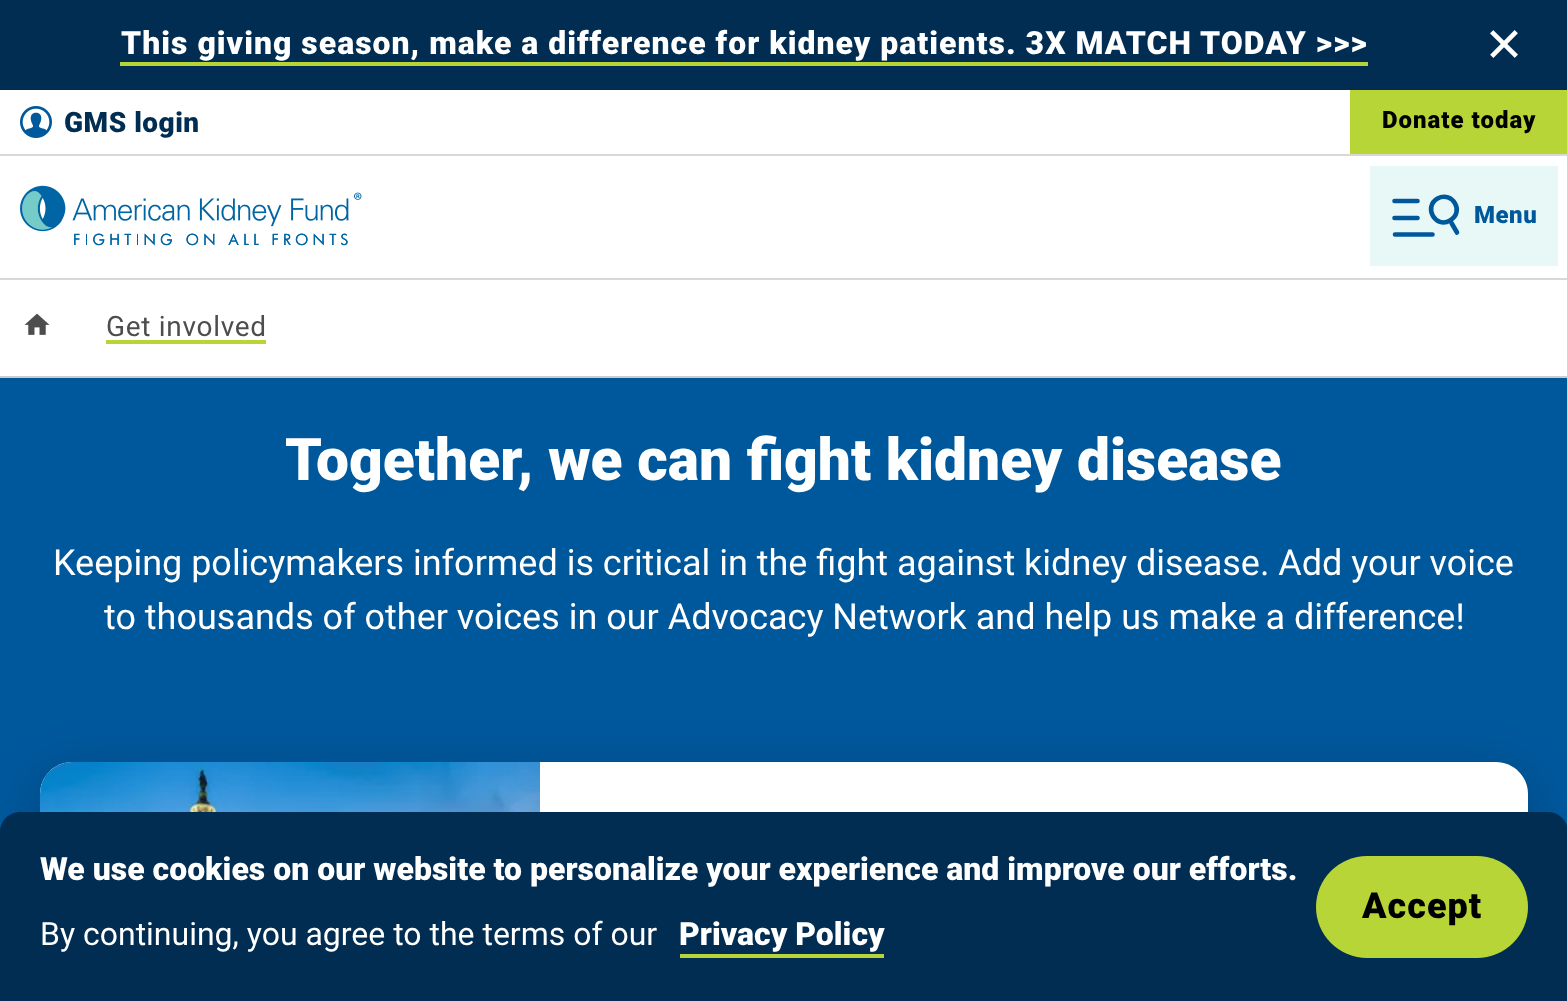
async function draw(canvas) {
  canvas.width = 1567
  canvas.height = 1001
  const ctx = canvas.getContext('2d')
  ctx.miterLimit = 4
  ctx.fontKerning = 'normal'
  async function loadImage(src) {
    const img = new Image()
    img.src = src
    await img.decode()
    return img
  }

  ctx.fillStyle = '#fff'
  ctx.fillRect(0, 0, 1567, 1001)
  ctx.fillStyle = '#002d51'
  ctx.fillRect(0, 0, 1567, 90)
  ctx.letterSpacing = '1px'
  ctx.font = '900 32px Roboto'
  ctx.fillStyle = '#fff'
  ctx.fillText('This giving season, make a difference for kidney patients. 3X MATCH TODAY >>>', 121, 54)
  ctx.fillStyle = '#b8d537'
  ctx.fillRect(120, 62, 1248, 4)
  ctx.drawImage(await loadImage('image0.png'), 1490, 30, 28, 28)
  ctx.fillStyle = '#d8d8d8'
  ctx.fillRect(0, 154, 1567, 2)
  ctx.drawImage(await loadImage('image1.png'), 20, 106, 32, 32)
  ctx.letterSpacing = '0.5px'
  ctx.font = '900 28px Roboto'
  ctx.fillStyle = '#002d51'
  ctx.fillText('GMS login', 64, 132)
  ctx.fillStyle = '#b8d537'
  ctx.fillRect(1350, 90, 217, 64)
  ctx.letterSpacing = '1px'
  ctx.font = '900 24px Roboto'
  ctx.fillStyle = '#000'
  ctx.fillText('Donate today', 1382, 128)
  ctx.fillStyle = '#d8d8d8'
  ctx.fillRect(0, 278, 1567, 2)
  ctx.drawImage(await loadImage('image2.png'), 20, 185, 342, 61)
  ctx.fillStyle = '#e8f8f7'
  ctx.fillRect(1370, 166, 188, 100)
  ctx.beginPath()
  ctx.moveTo(1437.5, 198.5)
  ctx.bezierCurveTo(1452.5, 190.5, 1465, 212, 1450, 220.5)
  ctx.bezierCurveTo(1435.5, 229, 1423, 207, 1437.5, 198.5)
  ctx.closePath()
  ctx.strokeStyle = '#00589c'
  ctx.lineWidth = 4.6
  ctx.stroke()
  ctx.beginPath()
  ctx.moveTo(1451.5, 223)
  ctx.lineTo(1457, 232.5)
  ctx.lineCap = 'round'
  ctx.stroke()
  ctx.beginPath()
  ctx.moveTo(1394.5, 201)
  ctx.lineTo(1417.5, 201)
  ctx.moveTo(1394.5, 218)
  ctx.lineTo(1417.5, 218)
  ctx.moveTo(1395, 234.5)
  ctx.lineTo(1432.5, 234.5)
  ctx.lineJoin = 'round'
  ctx.stroke()
  ctx.letterSpacing = '0.5px'
  ctx.fillStyle = '#00589c'
  ctx.fillText('Menu', 1474, 223)
  ctx.fillStyle = '#ccc'
  ctx.fillRect(0, 376, 1567, 2)
  ctx.drawImage(await loadImage('image3.png'), 24, 313, 26, 22)
  ctx.letterSpacing = '0.7px'
  ctx.font = '28px Roboto'
  ctx.fillStyle = '#4d4d4d'
  ctx.fillText('Get involved', 106, 336)
  ctx.fillStyle = '#b8d537'
  ctx.fillRect(106, 340, 160, 4)
  ctx.fillStyle = '#00589c'
  ctx.fillRect(0, 378, 1567, 454)
  ctx.letterSpacing = '0px'
  ctx.font = '900 58.75px Roboto'
  ctx.fillStyle = '#fff'
  ctx.fillText('Together, we can fight kidney disease', 285, 480)
  ctx.font = '36px Roboto'
  ctx.fillText('Keeping policymakers informed is critical in the fight against kidney disease. Add your voice', 53, 575)
  ctx.fillText('to thousands of other voices in our Advocacy Network and help us make a difference!', 104, 629)
  ctx.fillStyle = '#00000033'
  ctx.filter = 'blur(24px)'
  ctx.beginPath()
  ctx.roundRect(40, 774, 1488, 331, 32)
  ctx.fill()
  ctx.filter = 'none'
  ctx.fillStyle = '#fff'
  ctx.beginPath()
  ctx.moveTo(72, 762)
  ctx.lineTo(1496, 762)
  ctx.bezierCurveTo(1513.5, 762, 1528, 776.5, 1528, 794)
  ctx.lineTo(1528, 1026)
  ctx.lineTo(40, 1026)
  ctx.lineTo(40, 794)
  ctx.bezierCurveTo(40, 776.5, 54.5, 762, 72, 762)
  ctx.closePath()
  ctx.fill()
  ctx.drawImage(await loadImage('image4.png'), 40, 762, 500, 50)
  ctx.fillStyle = '#002d51'
  ctx.beginPath()
  ctx.moveTo(20, 812)
  ctx.lineTo(1548, 812)
  ctx.bezierCurveTo(1559, 812, 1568, 821, 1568, 832)
  ctx.lineTo(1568, 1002)
  ctx.lineTo(0, 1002)
  ctx.lineTo(0, 832)
  ctx.bezierCurveTo(0, 821, 9, 812, 20, 812)
  ctx.closePath()
  ctx.fill()
  ctx.font = '900 32px Roboto'
  ctx.fillStyle = '#fff'
  ctx.fillText('We use cookies on our website to personalize your experience and improve our efforts.', 40, 880)
  ctx.font = '32px Roboto'
  ctx.fillText('By continuing, you agree to the terms of our', 40, 945)
  ctx.font = '900 32px Roboto'
  ctx.fillText('Privacy Policy', 679, 945)
  ctx.fillStyle = '#b8d537'
  ctx.fillRect(680, 954, 204, 4)
  ctx.beginPath()
  ctx.roundRect(1316, 856, 212, 102, 51)
  ctx.fill()
  ctx.letterSpacing = '1px'
  ctx.font = '900 36px Roboto'
  ctx.fillStyle = '#000'
  ctx.fillText('Accept', 1362, 918)
}

draw(document.querySelector('canvas'))
